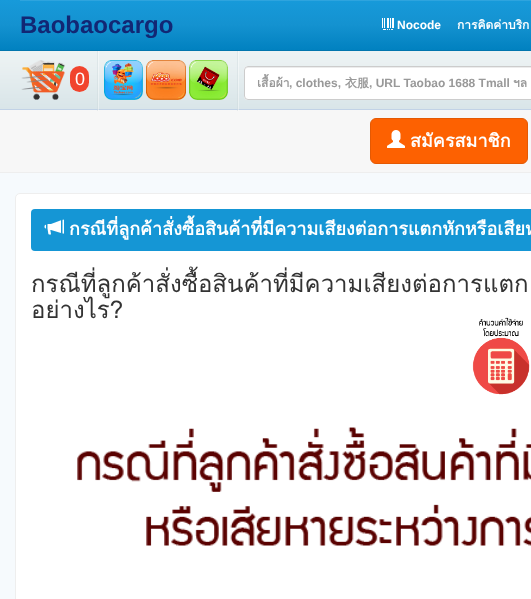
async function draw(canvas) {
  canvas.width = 531
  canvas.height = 599
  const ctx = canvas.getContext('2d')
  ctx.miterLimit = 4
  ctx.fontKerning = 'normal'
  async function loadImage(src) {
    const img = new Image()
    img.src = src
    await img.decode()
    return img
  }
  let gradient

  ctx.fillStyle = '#f6fafd'
  ctx.fillRect(0, 0, 531, 599)
  gradient = ctx.createLinearGradient(527, 0, 527, 50)
  gradient.addColorStop(0, '#179ada')
  gradient.addColorStop(0.5, '#1492d0')
  gradient.addColorStop(1, '#0181c0')
  ctx.fillStyle = gradient
  ctx.fillRect(0, 0, 531, 50)
  ctx.fillStyle = '#0275ad'
  ctx.fillRect(0, 50, 531, 1)
  ctx.font = 'bold 24px Liberation Sans'
  ctx.fillStyle = '#122774'
  ctx.fillText('Baobaocargo', 20, 33)
  ctx.fillStyle = '#2ea4de'
  ctx.fillRect(20, 0, 511, 1)
  ctx.drawImage(await loadImage('image0.png'), 382, 18, 12, 12)
  ctx.font = 'bold 12px Liberation Sans'
  ctx.fillStyle = '#fff'
  ctx.fillText('Nocode', 397, 29)
  ctx.font = 'bold 12px Loma'
  ctx.fillText('การคิดค่าบริก', 457, 29)
  ctx.drawImage(await loadImage('image1.png'), 0, 51, 531, 58)
  ctx.fillStyle = '#c1d2e6'
  ctx.fillRect(0, 109, 531, 1)
  ctx.fillStyle = '#f7f7f7'
  ctx.fillRect(0, 110, 531, 62)
  ctx.drawImage(await loadImage('image2.png'), 97, 51, 2, 60)
  ctx.drawImage(await loadImage('image3.png'), 21, 60, 44, 40)
  ctx.fillStyle = '#f1442d'
  ctx.beginPath()
  ctx.roundRect(70, 66, 19, 26, 9.5)
  ctx.fill()
  ctx.letterSpacing = '-1px'
  ctx.font = '18px Liberation Sans'
  ctx.fillStyle = '#fff'
  ctx.fillText('0', 75, 85)
  ctx.drawImage(await loadImage('image2.png'), 237, 51, 2, 60)
  ctx.drawImage(await loadImage('image4.png'), 104, 60, 39, 40)
  ctx.drawImage(await loadImage('image5.png'), 146, 60, 40, 40)
  ctx.drawImage(await loadImage('image6.png'), 189, 60, 39, 40)
  ctx.beginPath()
  ctx.roundRect(244, 66, 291, 34, 4)
  ctx.fill()
  ctx.fillStyle = '#ececec'
  ctx.beginPath()
  ctx.moveTo(248, 68)
  ctx.lineTo(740, 68)
  ctx.bezierCurveTo(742, 68, 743, 69, 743, 71)
  ctx.bezierCurveTo(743, 69, 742, 67, 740, 67)
  ctx.lineTo(248, 67)
  ctx.bezierCurveTo(246, 67, 245, 69, 245, 71)
  ctx.bezierCurveTo(245, 69, 246, 68, 248, 68)
  ctx.closePath()
  ctx.fill()
  ctx.beginPath()
  ctx.roundRect(244.5, 66.5, 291, 33, 3.5)
  ctx.strokeStyle = '#ccc'
  ctx.stroke()
  ctx.save()
  ctx.beginPath()
  ctx.rect(257, 73, 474, 19)
  ctx.clip()
  ctx.letterSpacing = '0px'
  ctx.font = 'bold 12px Loma'
  ctx.fillStyle = '#999'
  ctx.fillText('เสื้อผ้า', 257, 87)
  ctx.restore()
  ctx.letterSpacing = '0px'
  ctx.font = 'bold 12px Liberation Sans'
  ctx.fillStyle = '#999'
  ctx.fillText(', clothes,', 289, 87)
  ctx.font = 'bold 12px WenQuanYi Zen Hei'
  ctx.fillText('衣服', 345, 87)
  ctx.font = 'bold 12px Liberation Sans'
  ctx.fillText(', URL Taobao 1688 Tmall', 369, 87)
  ctx.font = 'bold 12px Loma'
  ctx.fillText('ฯล', 513, 87)
  ctx.fillStyle = '#eee'
  ctx.fillRect(0, 172, 531, 1)
  ctx.fillStyle = '#fd6101'
  ctx.beginPath()
  ctx.roundRect(370.5, 118.5, 157, 45, 5.5)
  ctx.fill()
  ctx.strokeStyle = '#e45903'
  ctx.stroke()
  ctx.drawImage(await loadImage('image7.png'), 387, 130, 18, 18)
  ctx.font = 'bold 18px Loma'
  ctx.fillStyle = '#fff'
  ctx.fillText('สมัครสมาชิก', 410, 147)
  ctx.beginPath()
  ctx.roundRect(15.5, 193.5, 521, 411, 4.5)
  ctx.fill()
  ctx.strokeStyle = '#eee'
  ctx.stroke()
  ctx.fillStyle = '#1596d5'
  ctx.beginPath()
  ctx.roundRect(31, 209, 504, 42, 4)
  ctx.fill()
  ctx.drawImage(await loadImage('image8.png'), 44, 219, 20, 16)
  ctx.fillStyle = '#fff'
  ctx.fillText('กรณีที่ลูกค้าสั่งซื้อสินค้าที่มีความเสียงต่อการแตกหักหรือเสียห', 69, 235)
  ctx.font = '24px Loma'
  ctx.fillStyle = '#333'
  ctx.fillText('กรณีที่ลูกค้าสั่งซื้อสินค้าที่มีความเสียงต่อการแตก', 31, 292)
  ctx.fillText('อย่างไร?', 31, 318)
  ctx.drawImage(await loadImage('image9.png'), 77, 427, 454, 119)
  ctx.drawImage(await loadImage('image10.png'), 472, 317, 58, 78)
}

draw(document.querySelector('canvas'))
